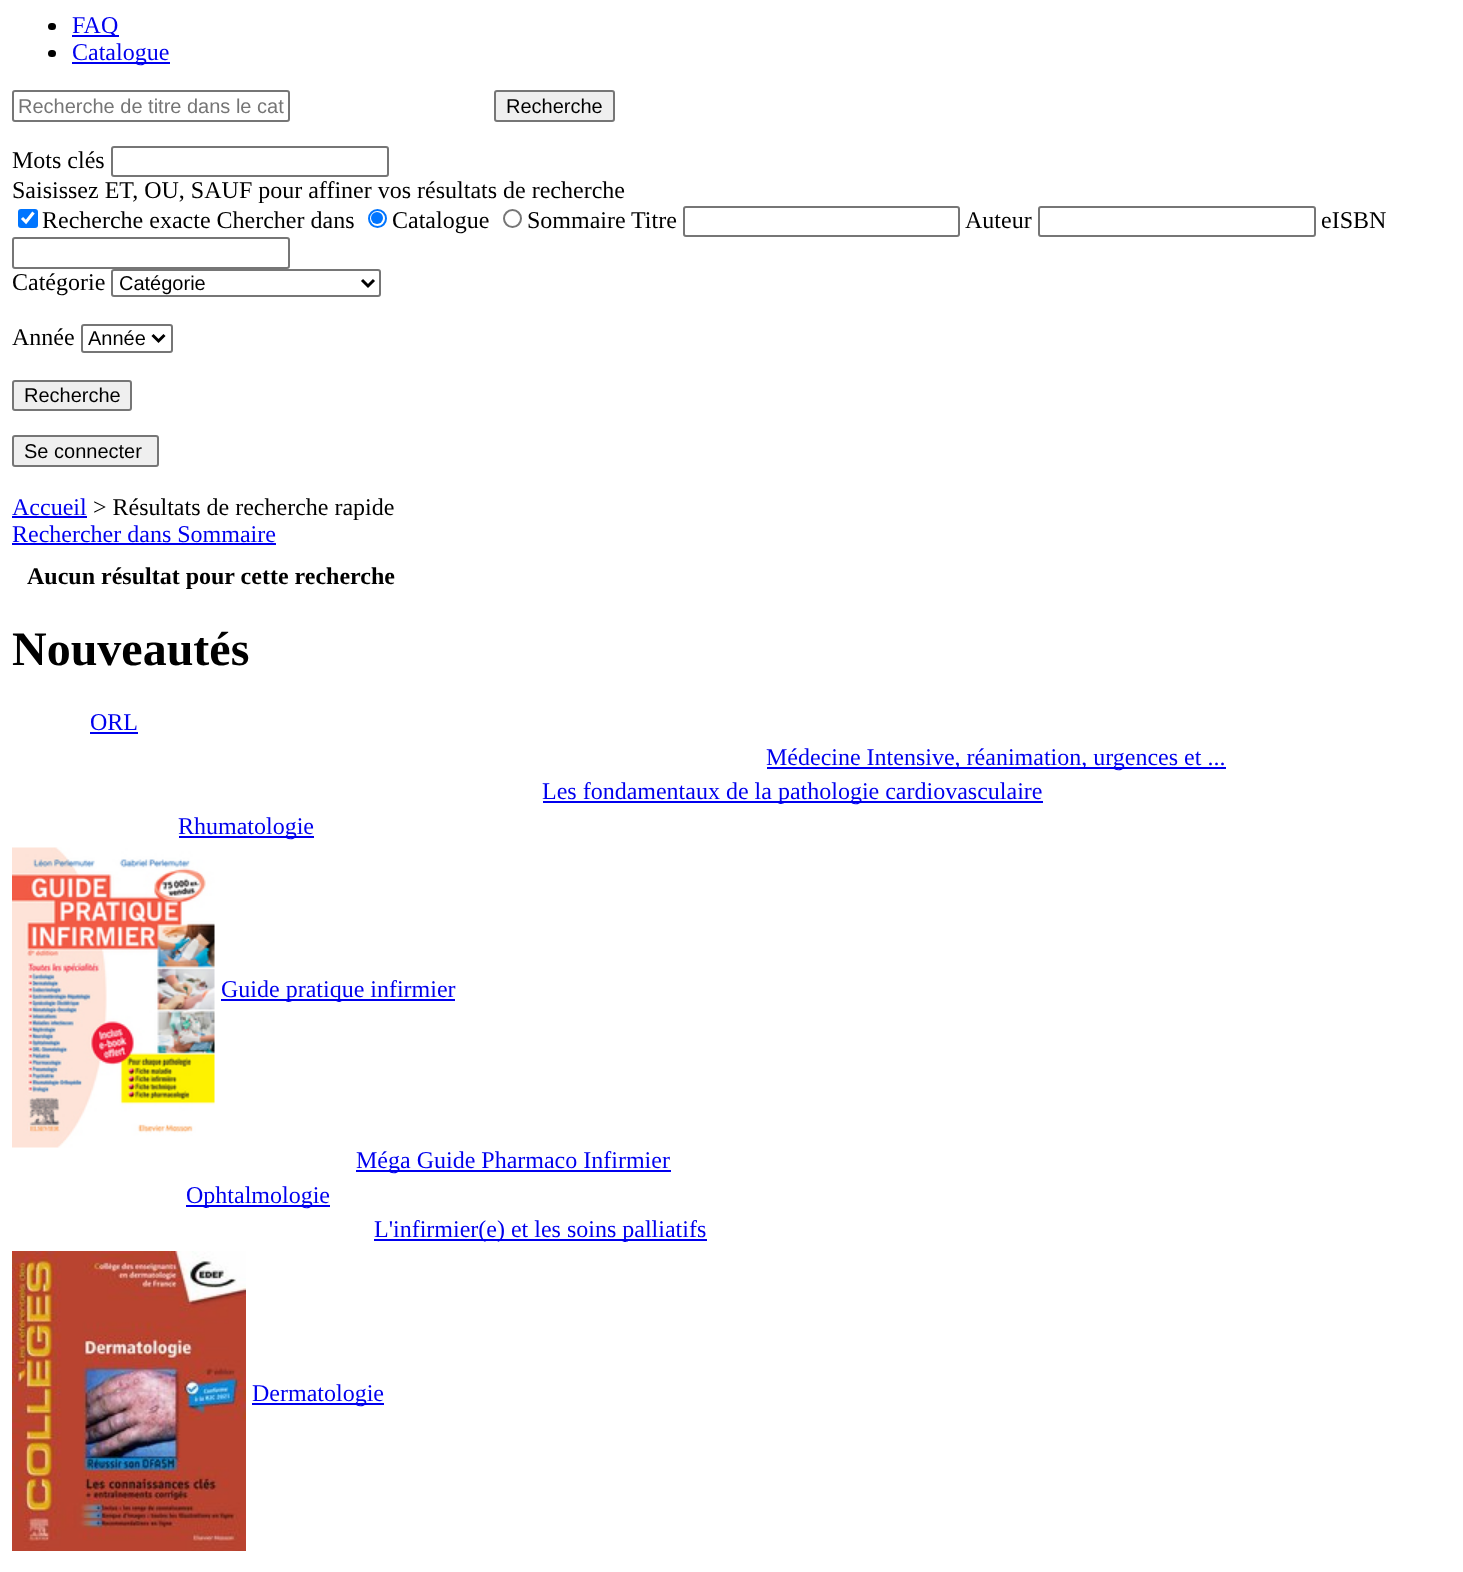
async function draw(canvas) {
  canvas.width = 1463
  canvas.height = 1572
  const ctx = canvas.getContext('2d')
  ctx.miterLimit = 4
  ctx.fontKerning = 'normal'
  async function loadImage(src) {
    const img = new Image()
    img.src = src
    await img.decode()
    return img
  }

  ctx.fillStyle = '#fff'
  ctx.fillRect(0, 0, 1463, 1572)
  ctx.fillStyle = '#000'
  ctx.beginPath()
  ctx.roundRect(48, 23, 8, 7, 3.5)
  ctx.fill()
  ctx.fillStyle = '#00e'
  ctx.fillRect(72, 35, 47, 2)
  ctx.font = '24px Liberation Serif'
  ctx.fillText('FAQ', 72, 33)
  ctx.fillStyle = '#000'
  ctx.beginPath()
  ctx.roundRect(48, 50, 8, 7, 3.5)
  ctx.fill()
  ctx.fillStyle = '#00e'
  ctx.fillRect(72, 62, 98, 2)
  ctx.fillText('Catalogue', 72, 60)
  ctx.beginPath()
  ctx.roundRect(13, 91, 276, 30, 2)
  ctx.strokeStyle = '#767676'
  ctx.lineWidth = 2
  ctx.stroke()
  ctx.font = '20px Liberation Sans'
  ctx.fillStyle = '#757575'
  ctx.fillText('Recherche de titre dans le cat', 18, 113)
  ctx.fillStyle = '#efefef'
  ctx.beginPath()
  ctx.roundRect(495, 91, 119, 30, 2)
  ctx.fill()
  ctx.stroke()
  ctx.fillStyle = '#000'
  ctx.fillText('Recherche', 506, 113)
  ctx.font = '24px Liberation Serif'
  ctx.fillText('Mots clés', 12, 168)
  ctx.beginPath()
  ctx.roundRect(112, 147, 276, 29, 2)
  ctx.stroke()
  ctx.fillText('Saisissez ET, OU, SAUF pour affiner vos résultats de recherche', 12, 198)
  ctx.fillStyle = '#0075ff'
  ctx.beginPath()
  ctx.roundRect(18, 209, 20, 19, 3)
  ctx.fill()
  ctx.beginPath()
  ctx.moveTo(22, 218)
  ctx.lineTo(26, 222)
  ctx.lineTo(33.5, 212.5)
  ctx.strokeStyle = '#fff'
  ctx.lineWidth = 3.1
  ctx.stroke()
  ctx.fillStyle = '#000'
  ctx.fillText('Recherche exacte Chercher dans', 42, 228)
  ctx.beginPath()
  ctx.arc(377.5, 218.5, 8.5, 0, 2 * Math.PI)
  ctx.strokeStyle = '#0075ff'
  ctx.lineWidth = 2
  ctx.stroke()
  ctx.fillStyle = '#0075ff'
  ctx.beginPath()
  ctx.arc(377, 218, 6, 0, 2 * Math.PI)
  ctx.fill()
  ctx.fillStyle = '#000'
  ctx.fillText('Catalogue', 392, 228)
  ctx.beginPath()
  ctx.arc(512.5, 218.5, 8.5, 0, 2 * Math.PI)
  ctx.strokeStyle = '#767676'
  ctx.stroke()
  ctx.fillText('Sommaire', 527, 228)
  ctx.fillText('Titre', 631, 228)
  ctx.beginPath()
  ctx.roundRect(684, 207, 275, 29, 2)
  ctx.stroke()
  ctx.fillText('Auteur', 965, 228)
  ctx.beginPath()
  ctx.roundRect(1039, 207, 276, 29, 2)
  ctx.stroke()
  ctx.fillText('eISBN', 1321, 228)
  ctx.beginPath()
  ctx.roundRect(13, 238, 276, 30, 2)
  ctx.stroke()
  ctx.fillText('Catégorie', 12, 290)
  ctx.beginPath()
  ctx.roundRect(112, 270, 268, 26, 2)
  ctx.stroke()
  ctx.beginPath()
  ctx.moveTo(362, 280)
  ctx.lineTo(368, 286)
  ctx.lineTo(374, 280)
  ctx.strokeStyle = '#000'
  ctx.lineWidth = 3
  ctx.stroke()
  ctx.font = '20px Liberation Sans'
  ctx.fillText('Catégorie', 119, 290)
  ctx.font = '24px Liberation Serif'
  ctx.fillText('Année', 12, 345)
  ctx.beginPath()
  ctx.roundRect(82, 325, 90, 27, 2)
  ctx.strokeStyle = '#767676'
  ctx.lineWidth = 2
  ctx.stroke()
  ctx.beginPath()
  ctx.moveTo(152.5, 335)
  ctx.lineTo(158.5, 341)
  ctx.lineTo(164.5, 335)
  ctx.strokeStyle = '#000'
  ctx.lineWidth = 3
  ctx.stroke()
  ctx.font = '20px Liberation Sans'
  ctx.fillText('Année', 88, 345)
  ctx.fillStyle = '#efefef'
  ctx.beginPath()
  ctx.roundRect(13, 381, 118, 29, 2)
  ctx.fill()
  ctx.strokeStyle = '#767676'
  ctx.lineWidth = 2
  ctx.stroke()
  ctx.fillStyle = '#000'
  ctx.fillText('Recherche', 24, 402)
  ctx.fillStyle = '#efefef'
  ctx.beginPath()
  ctx.roundRect(13, 436, 145, 30, 2)
  ctx.fill()
  ctx.stroke()
  ctx.fillStyle = '#000'
  ctx.fillText('Se connecter', 24, 458)
  ctx.font = '24px Liberation Serif'
  ctx.fillStyle = '#00e'
  ctx.fillText('Accueil', 12, 515)
  ctx.fillRect(12, 516, 75, 2)
  ctx.fillStyle = '#000'
  ctx.fillText('> Résultats de recherche rapide', 93, 515)
  ctx.fillStyle = '#00e'
  ctx.fillText('Rechercher dans Sommaire', 12, 542)
  ctx.fillRect(12, 543, 264, 2)
  ctx.font = 'bold 24px Liberation Serif'
  ctx.fillStyle = '#000'
  ctx.fillText('Aucun résultat pour cette recherche', 27, 584)
  ctx.font = 'bold 48px Liberation Serif'
  ctx.fillText('Nouveautés', 12, 665)
  ctx.font = '24px Liberation Serif'
  ctx.fillStyle = '#00e'
  ctx.fillText('ORL', 90, 730)
  ctx.fillRect(90, 732, 48, 2)
  ctx.fillRect(767, 767, 459, 2)
  ctx.fillText('Médecine Intensive, réanimation, urgences et ...', 766, 765)
  ctx.fillRect(543, 801, 500, 2)
  ctx.fillText('Les fondamentaux de la pathologie cardiovasculaire', 542, 799)
  ctx.fillRect(179, 836, 135, 2)
  ctx.fillText('Rhumatologie', 178, 834)
  ctx.drawImage(await loadImage('image0.png'), 12, 847, 203, 301)
  ctx.fillRect(221, 999, 234, 2)
  ctx.fillText('Guide pratique infirmier', 221, 997)
  ctx.fillRect(356, 1170, 315, 2)
  ctx.fillText('Méga Guide Pharmaco Infirmier', 356, 1168)
  ctx.fillRect(186, 1205, 144, 2)
  ctx.fillText('Ophtalmologie', 186, 1203)
  ctx.fillRect(374, 1239, 333, 2)
  ctx.fillText('L\'infirmier(e) et les soins palliatifs', 374, 1237)
  ctx.drawImage(await loadImage('image1.png'), 12, 1251, 234, 300)
  ctx.fillRect(252, 1403, 132, 2)
  ctx.fillText('Dermatologie', 252, 1401)
}

draw(document.querySelector('canvas'))
